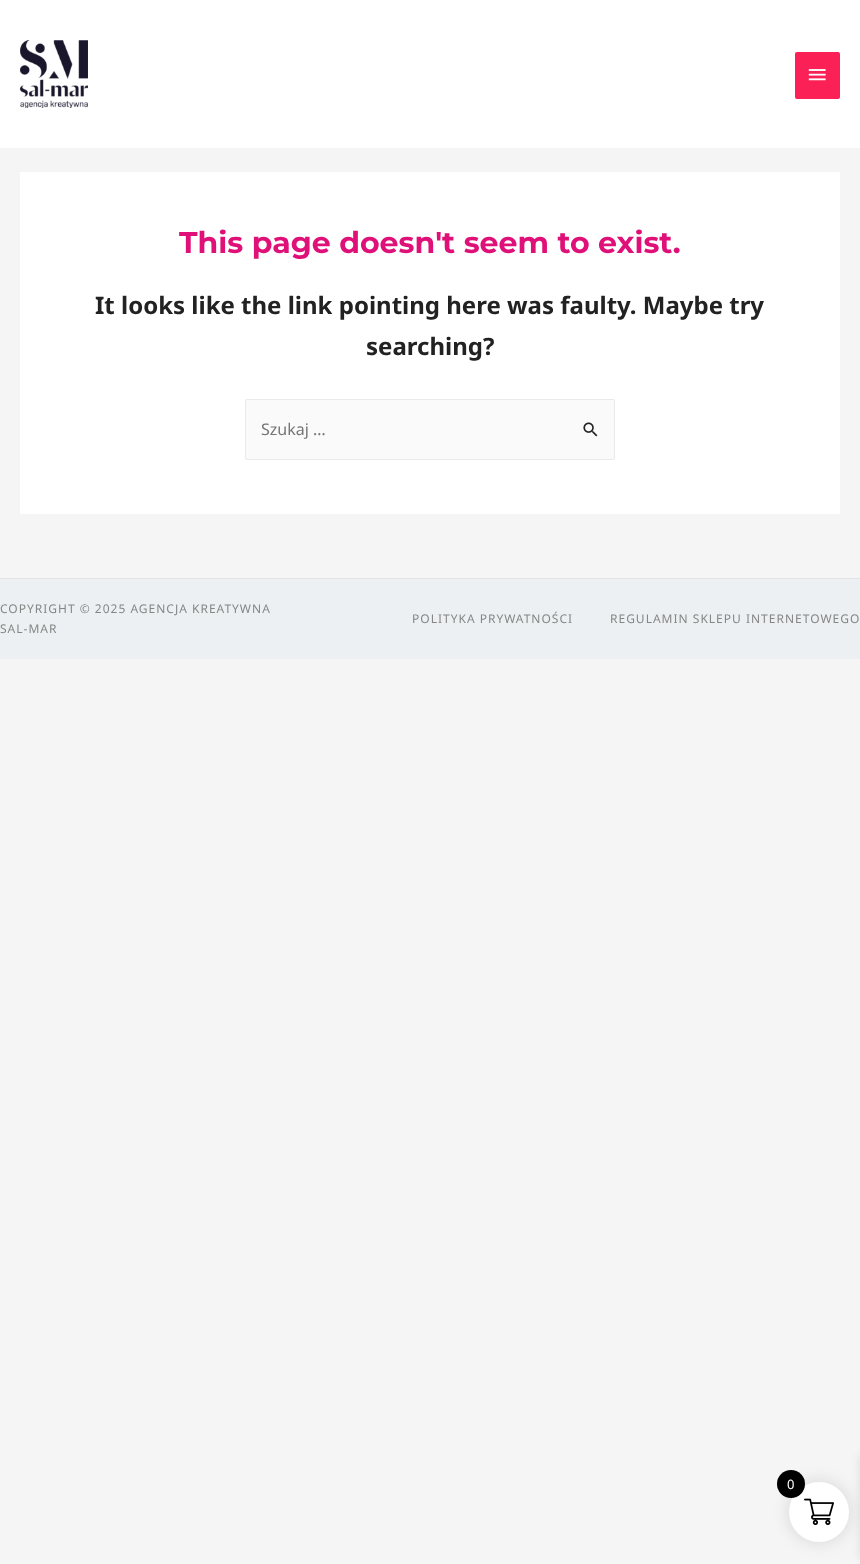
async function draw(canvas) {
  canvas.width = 860
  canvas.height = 1564
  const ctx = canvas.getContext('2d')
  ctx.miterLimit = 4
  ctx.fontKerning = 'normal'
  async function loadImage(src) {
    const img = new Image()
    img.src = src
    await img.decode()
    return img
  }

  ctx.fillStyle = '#f5f5f5'
  ctx.fillRect(0, 0, 860, 1564)
  ctx.fillStyle = '#fff'
  ctx.fillRect(0, 0, 860, 148)
  ctx.drawImage(await loadImage('image0.png'), 20, 40, 68, 68)
  ctx.fillStyle = '#fb2056'
  ctx.beginPath()
  ctx.roundRect(795, 52, 45, 47, 2)
  ctx.fill()
  ctx.drawImage(await loadImage('image1.png'), 808, 69, 18, 12)
  ctx.fillStyle = '#fff'
  ctx.fillRect(20, 172, 820, 342)
  ctx.font = '100 30px Montserrat'
  ctx.fillStyle = '#df1178'
  ctx.fillText('This page doesn\'t seem to exist.', 179, 253)
  ctx.font = 'bold 24px Noto Sans'
  ctx.fillStyle = '#222'
  ctx.fillText('It looks like the link pointing here was faulty. Maybe try', 95, 314)
  ctx.fillText('searching?', 366, 355)
  ctx.fillStyle = '#fafafa'
  ctx.beginPath()
  ctx.roundRect(245.5, 399.5, 369, 60, 1.5)
  ctx.fill()
  ctx.strokeStyle = '#eaeaea'
  ctx.stroke()
  ctx.font = '16px Noto Sans'
  ctx.fillStyle = '#757575'
  ctx.fillText('Szukaj …', 261, 435)
  ctx.drawImage(await loadImage('image2.png'), 583, 422, 15, 15)
  ctx.fillStyle = '#ecf0f2'
  ctx.fillRect(0, 579, 860, 80)
  ctx.fillStyle = '#e1e4e6'
  ctx.fillRect(0, 578, 860, 1)
  ctx.letterSpacing = '1px'
  ctx.font = '12px Noto Sans'
  ctx.fillStyle = '#868686'
  ctx.fillText('COPYRIGHT © 2025 AGENCJA KREATYWNA', 0, 613)
  ctx.fillText('SAL-MAR', 0, 633)
  ctx.fillText('POLITYKA PRYWATNOŚCI', 412, 623)
  ctx.fillText('REGULAMIN SKLEPU INTERNETOWEGO', 610, 623)
  ctx.fillStyle = '#0000001a'
  ctx.filter = 'blur(7.5px)'
  ctx.beginPath()
  ctx.roundRect(787, 1480, 64, 64, 32)
  ctx.fill()
  ctx.filter = 'none'
  ctx.filter = 'blur(5px)'
  ctx.beginPath()
  ctx.rect(860, 1455, 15, 104)
  ctx.fill()
  ctx.filter = 'none'
  ctx.fillStyle = '#fff'
  ctx.beginPath()
  ctx.arc(819, 1512, 30, 0, 2 * Math.PI)
  ctx.fill()
  ctx.fillStyle = '#000'
  ctx.beginPath()
  ctx.arc(791, 1484, 14, 0, 2 * Math.PI)
  ctx.fill()
  ctx.letterSpacing = '0px'
  ctx.font = '13px Noto Sans'
  ctx.fillStyle = '#fff'
  ctx.fillText('0', 787, 1489)
  ctx.drawImage(await loadImage('image3.png'), 804, 1498, 30, 27)
}

draw(document.querySelector('canvas'))
